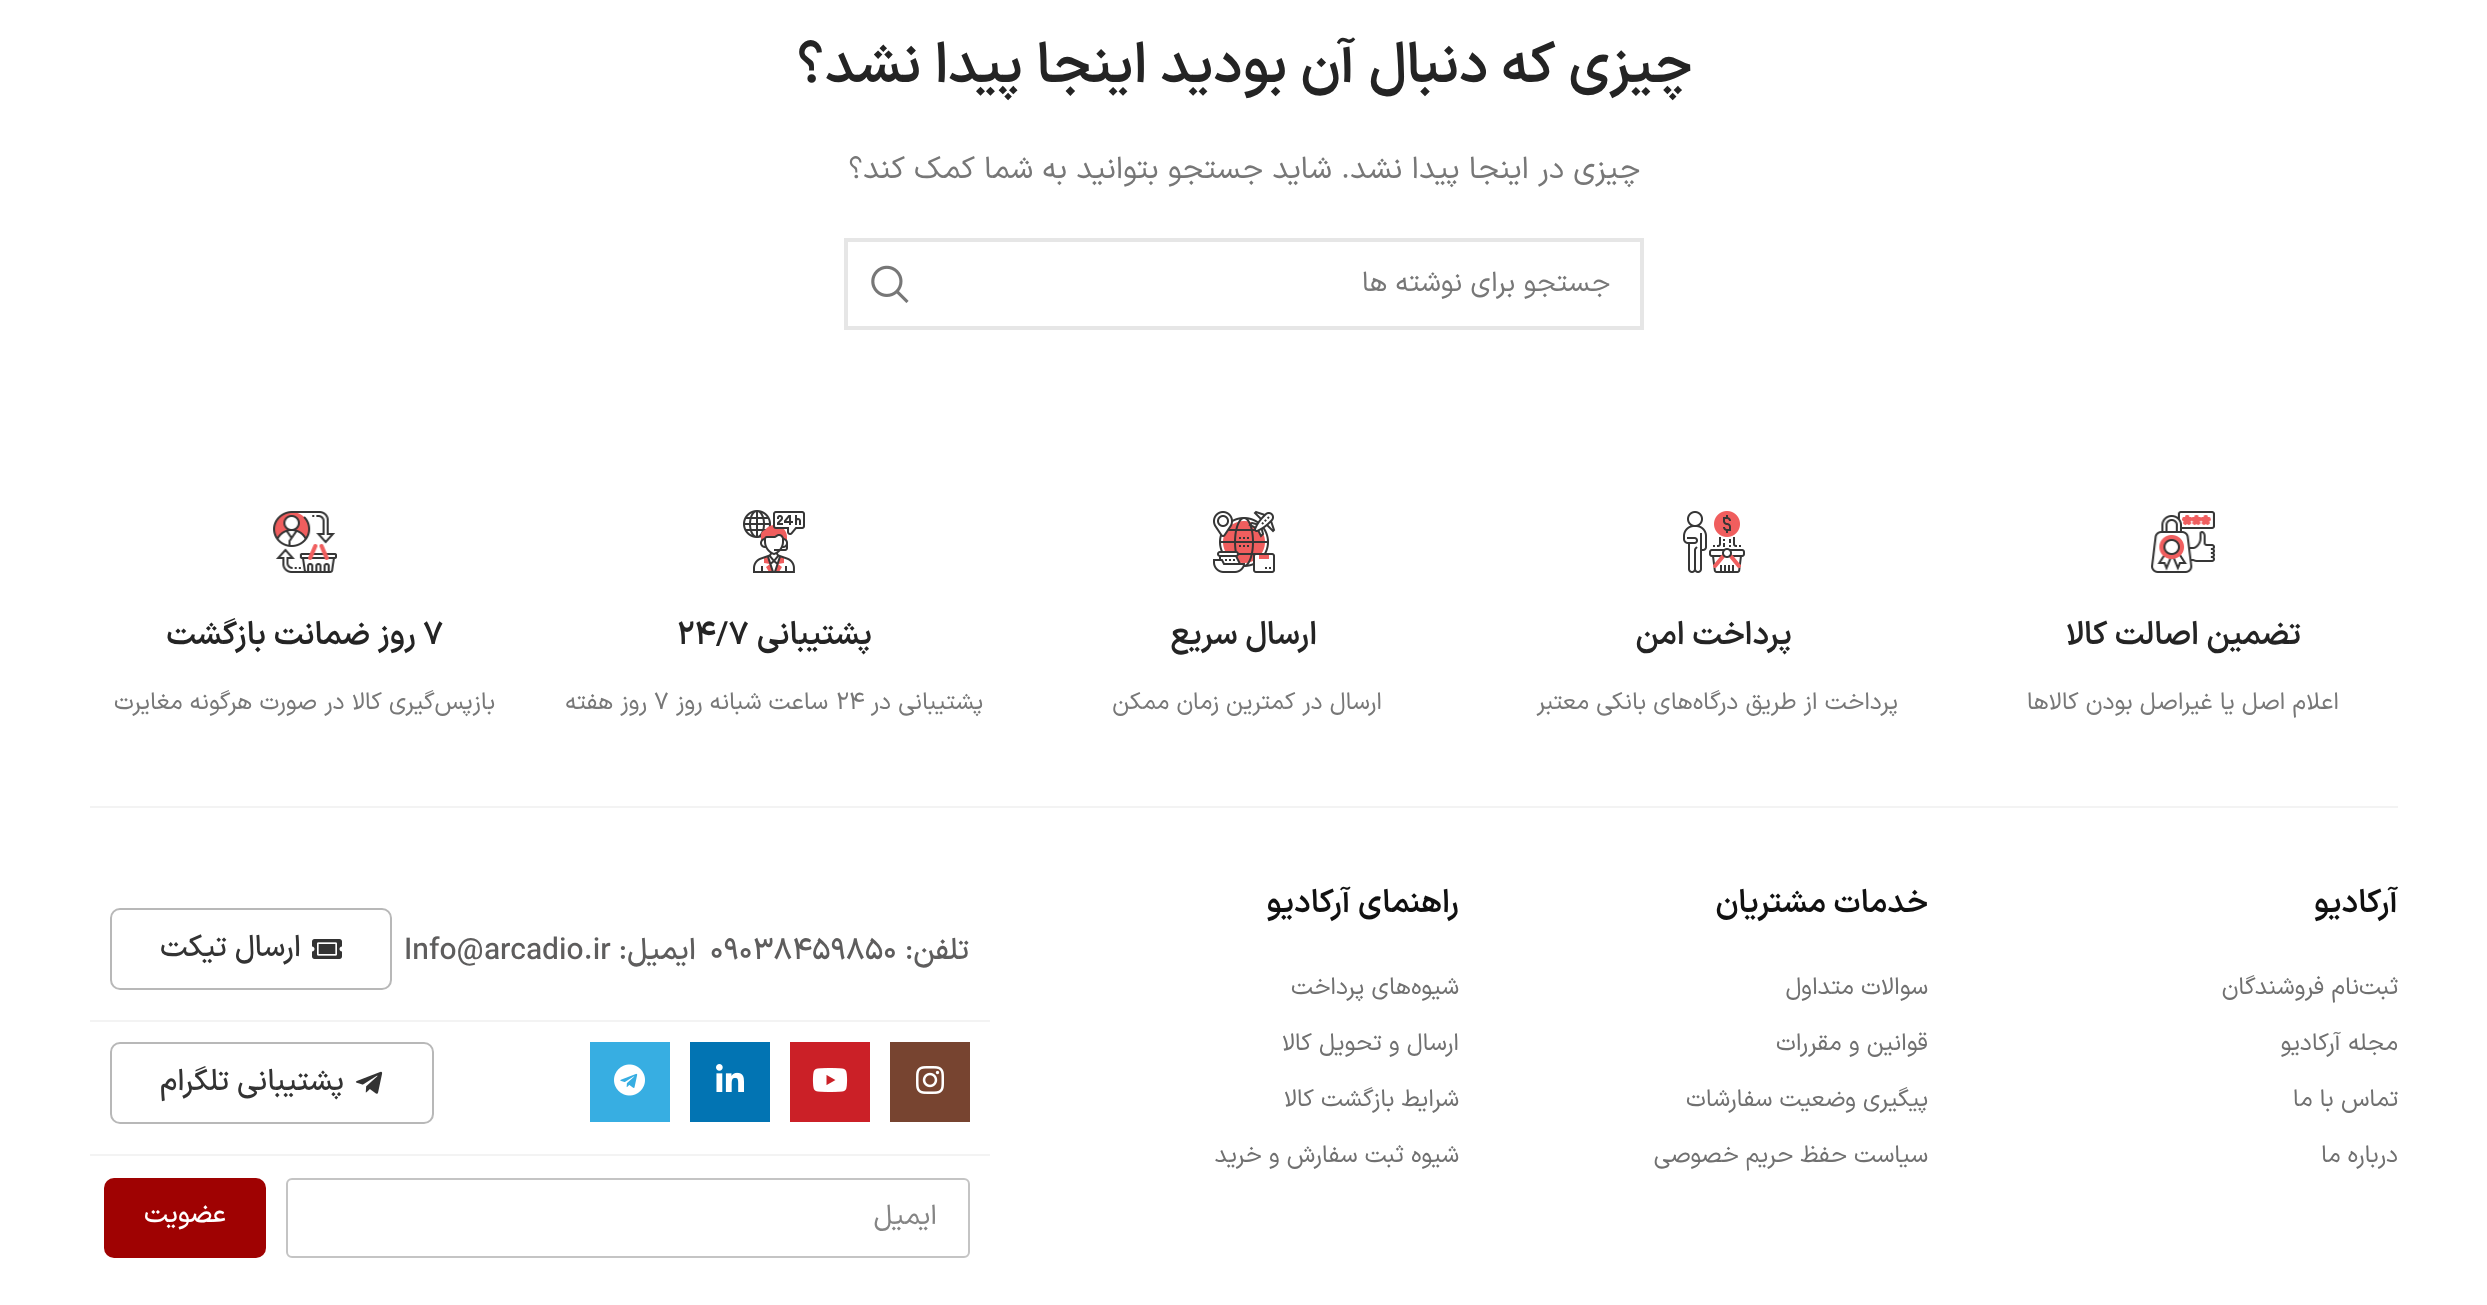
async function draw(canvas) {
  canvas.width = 2487
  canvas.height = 1305
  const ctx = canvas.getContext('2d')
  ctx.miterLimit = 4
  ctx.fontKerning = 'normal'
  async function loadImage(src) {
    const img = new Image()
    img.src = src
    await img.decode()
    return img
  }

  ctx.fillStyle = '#fff'
  ctx.fillRect(0, 0, 2487, 1305)
  ctx.direction = 'rtl'
  ctx.font = '600 56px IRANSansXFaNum'
  ctx.fillStyle = '#242424'
  ctx.fillText('چیزی که دنبال آن بودید اینجا پیدا نشد؟', 1692, 82)
  ctx.font = '30.8px IRANSansXFaNum'
  ctx.fillStyle = '#777'
  ctx.fillText('چیزی در اینجا پیدا نشد. شاید جستجو بتوانید به شما کمک کند؟', 1640, 178)
  ctx.strokeStyle = '#e6e6e6'
  ctx.lineWidth = 4
  ctx.strokeRect(846, 240, 796, 88)
  ctx.font = '28px IRANSansXFaNum'
  ctx.fillText('جستجو برای نوشته ها', 1610, 291)
  ctx.drawImage(await loadImage('image0.png'), 871, 265, 38, 38)
  ctx.drawImage(await loadImage('image1.png'), 2151, 511, 64, 62)
  ctx.font = '600 32px IRANSansXFaNum'
  ctx.fillStyle = '#242424'
  ctx.fillText('تضمین اصالت کالا', 2301, 644)
  ctx.font = '24px IRANSansXFaNum'
  ctx.fillStyle = '#777'
  ctx.fillText('اعلام اصل یا غیراصل بودن کالاها', 2339, 709)
  ctx.drawImage(await loadImage('image2.png'), 1683, 511, 62, 62)
  ctx.font = '600 32px IRANSansXFaNum'
  ctx.fillStyle = '#242424'
  ctx.fillText('پرداخت امن', 1792, 644)
  ctx.font = '24px IRANSansXFaNum'
  ctx.fillStyle = '#777'
  ctx.fillText('پرداخت از طریق درگاه‌های بانکی معتبر', 1898, 709)
  ctx.drawImage(await loadImage('image3.png'), 1213, 510, 63, 63)
  ctx.font = '600 32px IRANSansXFaNum'
  ctx.fillStyle = '#242424'
  ctx.fillText('ارسال سریع', 1317, 644)
  ctx.font = '24px IRANSansXFaNum'
  ctx.fillStyle = '#777'
  ctx.fillText('ارسال در کمترین زمان ممکن', 1382, 709)
  ctx.drawImage(await loadImage('image4.png'), 743, 510, 62, 63)
  ctx.font = '600 32px IRANSansXFaNum'
  ctx.fillStyle = '#242424'
  ctx.fillText('پشتیبانی', 872, 644)
  ctx.direction = 'ltr'
  ctx.fillText('24/7', 677, 644)
  ctx.direction = 'rtl'
  ctx.font = '24px IRANSansXFaNum'
  ctx.fillStyle = '#777'
  ctx.fillText('پشتیبانی در', 983, 709)
  ctx.direction = 'ltr'
  ctx.fillText('24', 836, 709)
  ctx.direction = 'rtl'
  ctx.fillText('ساعت شبانه روز', 828, 709)
  ctx.direction = 'ltr'
  ctx.fillText('7', 654, 709)
  ctx.direction = 'rtl'
  ctx.fillText('روز هفته', 647, 709)
  ctx.drawImage(await loadImage('image5.png'), 273, 511, 64, 62)
  ctx.direction = 'ltr'
  ctx.font = '600 32px IRANSansXFaNum'
  ctx.fillStyle = '#242424'
  ctx.fillText('7', 423, 644)
  ctx.direction = 'rtl'
  ctx.fillText('روز ضمانت بازگشت', 416, 644)
  ctx.font = '24px IRANSansXFaNum'
  ctx.fillStyle = '#777'
  ctx.fillText('بازپس‌گیری کالا در صورت هرگونه مغایرت', 495, 709)
  ctx.fillStyle = '#f3f3f3'
  ctx.fillRect(90, 806, 2308, 2)
  ctx.font = '600 32px IRANSansXFaNum'
  ctx.fillStyle = '#111'
  ctx.fillText('آرکادیو', 2398, 912)
  ctx.font = '24px IRANSansXFaNum'
  ctx.fillStyle = '#707070'
  ctx.fillText('ثبت‌نام فروشندگان', 2398, 994)
  ctx.fillText('مجله آرکادیو', 2398, 1050)
  ctx.fillText('تماس با ما', 2398, 1106)
  ctx.fillText('درباره ما', 2398, 1162)
  ctx.font = '600 32px IRANSansXFaNum'
  ctx.fillStyle = '#111'
  ctx.fillText('خدمات مشتریان', 1928, 912)
  ctx.font = '24px IRANSansXFaNum'
  ctx.fillStyle = '#707070'
  ctx.fillText('سوالات متداول', 1928, 994)
  ctx.fillText('قوانین و مقررات', 1928, 1050)
  ctx.fillText('پیگیری وضعیت سفارشات', 1928, 1106)
  ctx.fillText('سیاست حفظ حریم خصوصی', 1928, 1162)
  ctx.font = '600 32px IRANSansXFaNum'
  ctx.fillStyle = '#111'
  ctx.fillText('راهنمای آرکادیو', 1459, 912)
  ctx.font = '24px IRANSansXFaNum'
  ctx.fillStyle = '#707070'
  ctx.fillText('شیوه‌های پرداخت', 1459, 994)
  ctx.fillText('ارسال و تحویل کالا', 1459, 1050)
  ctx.fillText('شرایط بازگشت کالا', 1459, 1106)
  ctx.fillText('شیوه ثبت سفارش و خرید', 1459, 1162)
  ctx.font = '500 30px IRANSansXFaNum'
  ctx.fillStyle = '#5e5d5d'
  ctx.fillText('تلفن:', 969, 959)
  ctx.direction = 'ltr'
  ctx.fillText('09038459850', 710, 959)
  ctx.direction = 'rtl'
  ctx.fillText('ایمیل:', 696, 959)
  ctx.direction = 'ltr'
  ctx.fillText('Info@arcadio.ir', 404, 959)
  ctx.beginPath()
  ctx.roundRect(111, 909, 280, 80, 9)
  ctx.strokeStyle = '#b8b8b8'
  ctx.lineWidth = 2
  ctx.stroke()
  ctx.drawImage(await loadImage('image6.png'), 312, 939, 30, 20)
  ctx.direction = 'rtl'
  ctx.fillStyle = '#333'
  ctx.fillText('ارسال تیکت', 301, 956)
  ctx.fillStyle = '#f3f3f3'
  ctx.fillRect(90, 1020, 900, 2)
  ctx.fillStyle = '#774430'
  ctx.fillRect(890, 1042, 80, 80)
  ctx.drawImage(await loadImage('image7.png'), 916, 1066, 28, 28)
  ctx.fillStyle = '#cb2027'
  ctx.fillRect(790, 1042, 80, 80)
  ctx.drawImage(await loadImage('image8.png'), 812, 1068, 36, 24)
  ctx.fillStyle = '#0274b3'
  ctx.fillRect(690, 1042, 80, 80)
  ctx.drawImage(await loadImage('image9.png'), 716, 1064, 28, 28)
  ctx.fillStyle = '#37aee2'
  ctx.fillRect(590, 1042, 80, 80)
  ctx.drawImage(await loadImage('image10.png'), 614, 1064, 31, 32)
  ctx.beginPath()
  ctx.roundRect(111, 1043, 322, 80, 9)
  ctx.stroke()
  ctx.drawImage(await loadImage('image11.png'), 355, 1071, 28, 23)
  ctx.fillStyle = '#333'
  ctx.fillText('پشتیبانی تلگرام', 344, 1090)
  ctx.fillStyle = '#f3f3f3'
  ctx.fillRect(90, 1154, 900, 2)
  ctx.beginPath()
  ctx.roundRect(287, 1179, 682, 78, 5)
  ctx.strokeStyle = '#c4c4c4'
  ctx.stroke()
  ctx.font = '28px IRANSansXFaNum'
  ctx.fillStyle = '#858585'
  ctx.fillText('ایمیل', 937, 1224)
  ctx.fillStyle = '#9f0202'
  ctx.beginPath()
  ctx.roundRect(104, 1178, 162, 80, 10)
  ctx.fill()
  ctx.font = '500 26px IRANSansXFaNum'
  ctx.fillStyle = '#fff'
  ctx.fillText('عضویت', 226, 1222)
}

draw(document.querySelector('canvas'))
